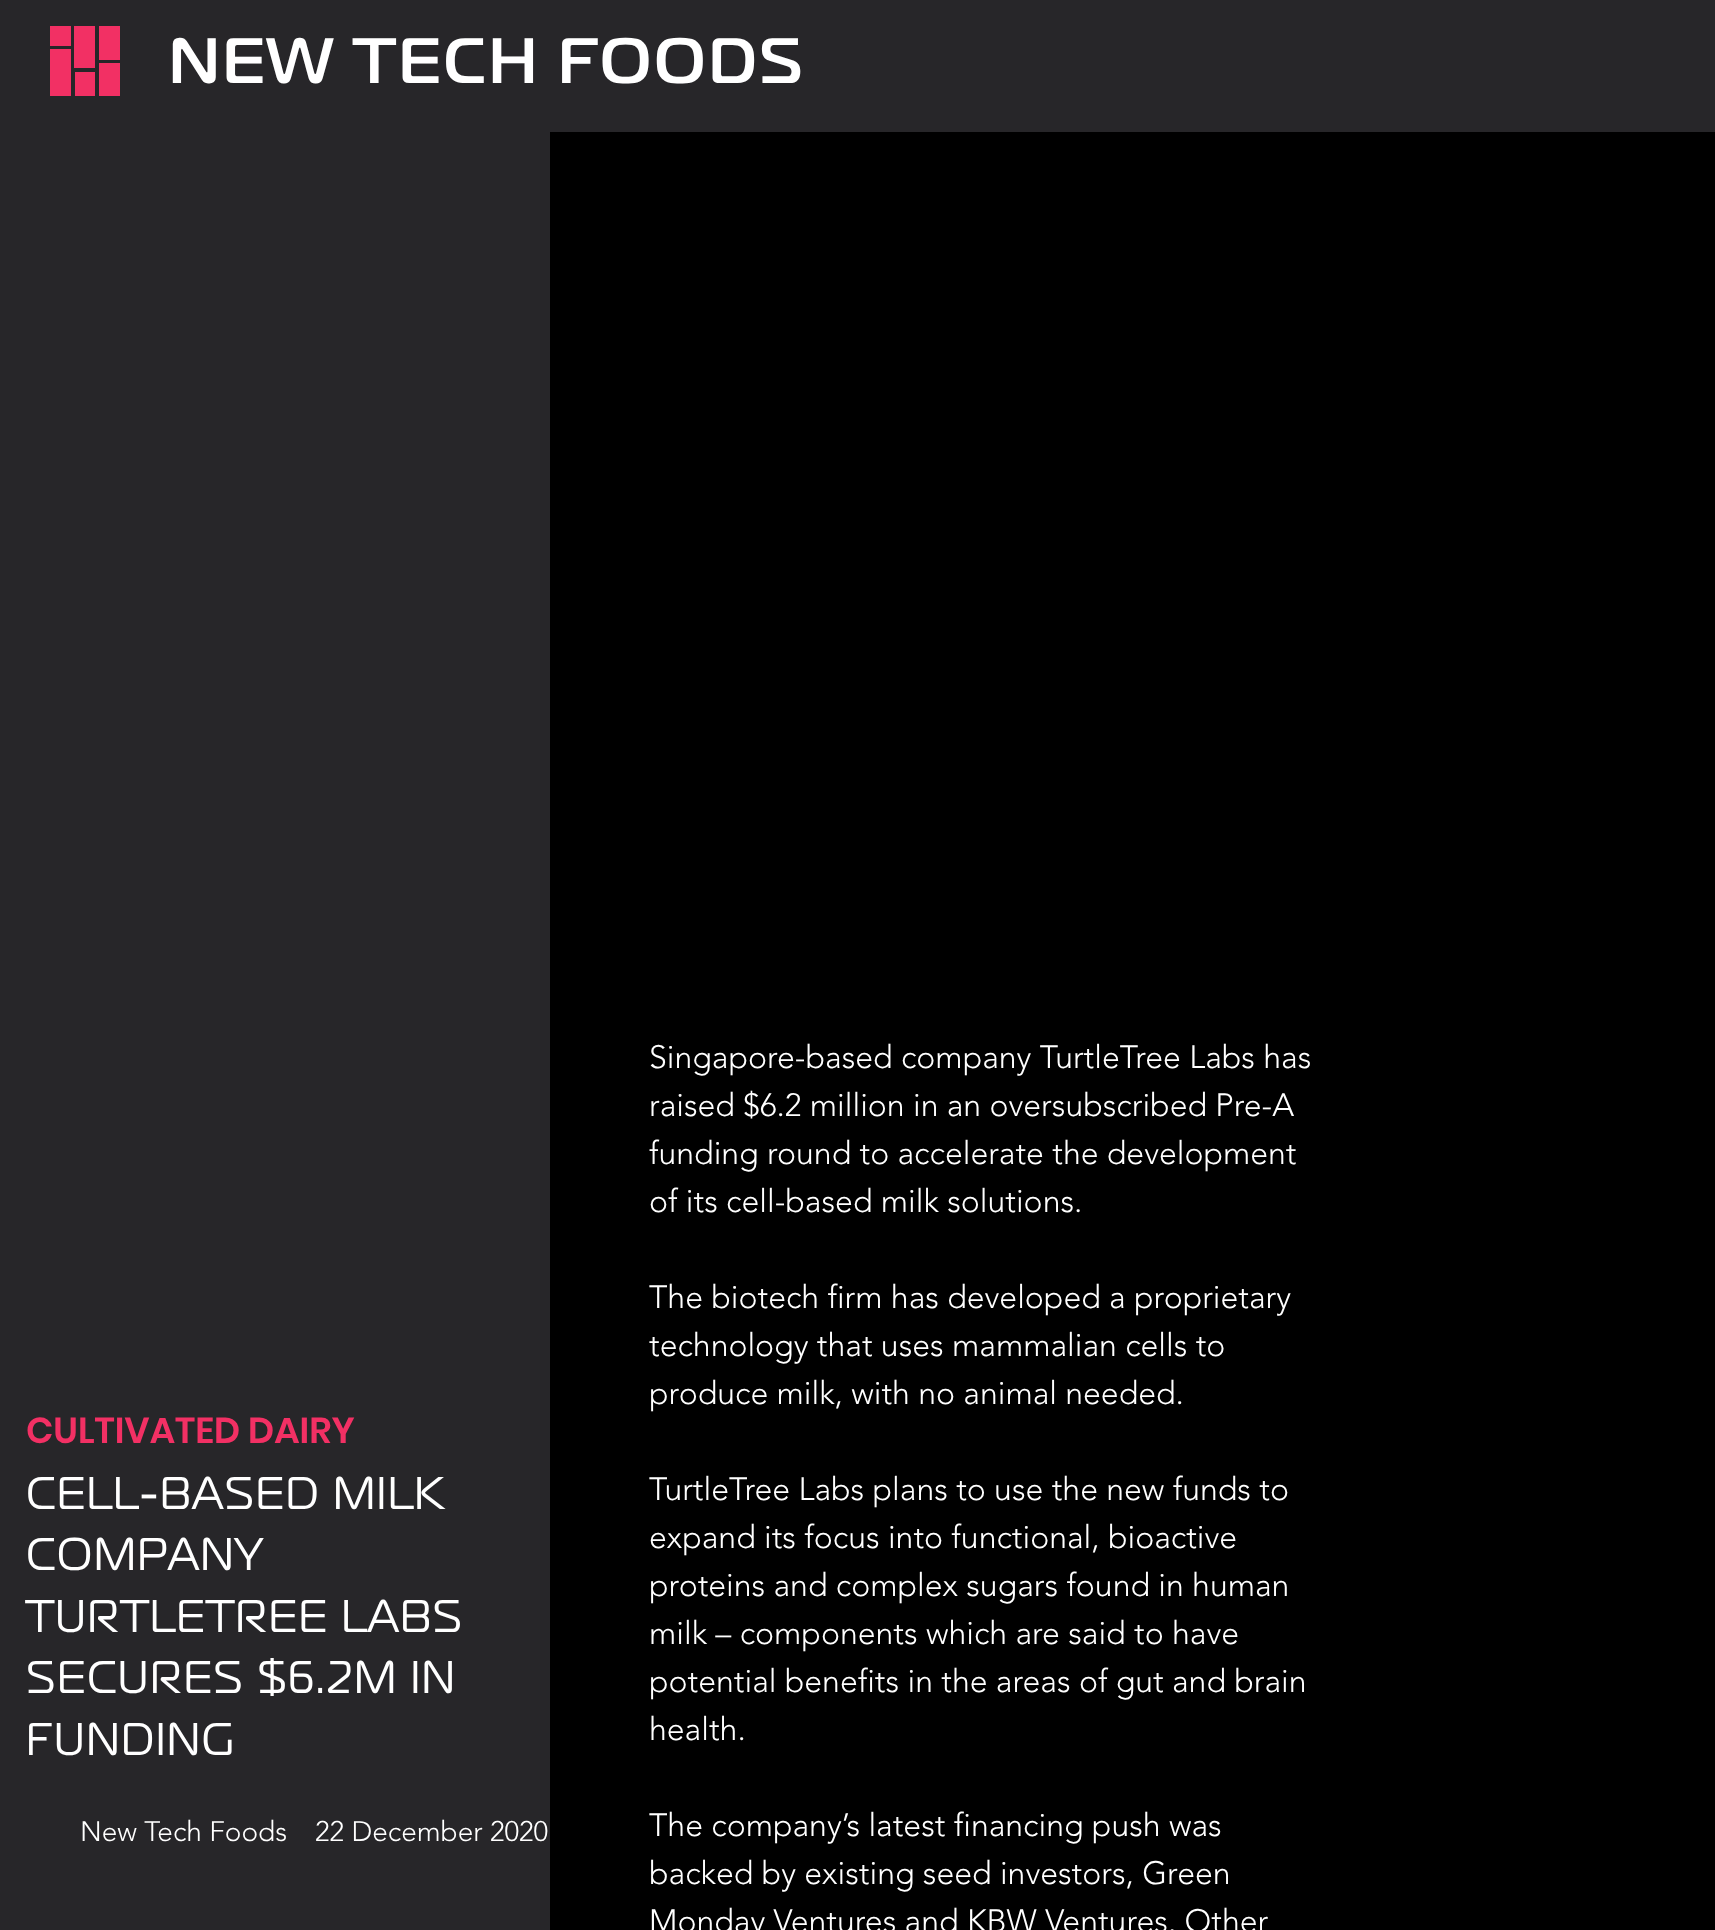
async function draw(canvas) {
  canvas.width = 1715
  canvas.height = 1930
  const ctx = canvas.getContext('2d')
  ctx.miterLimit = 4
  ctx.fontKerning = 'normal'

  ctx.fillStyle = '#000'
  ctx.fillRect(0, 0, 1715, 1930)
  ctx.fillStyle = '#272629'
  ctx.fillRect(0, 0, 1715, 132)
  ctx.fillStyle = '#f23064'
  ctx.fillRect(50, 26, 21, 20)
  ctx.fillRect(50, 49, 21, 47)
  ctx.fillRect(74, 26, 21, 42)
  ctx.fillRect(75, 72, 20, 24)
  ctx.fillRect(99, 26, 21, 34)
  ctx.fillRect(99, 63, 21, 33)
  ctx.letterSpacing = '3.25px'
  ctx.font = 'bold 64px "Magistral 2"'
  ctx.fillStyle = '#fff'
  ctx.fillText('NEW TECH FOODS', 169, 83)
  ctx.fillStyle = '#272629'
  ctx.fillRect(0, 132, 550, 1798)
  ctx.letterSpacing = '0px'
  ctx.font = '600 36px Poppins'
  ctx.fillStyle = '#f23064'
  ctx.fillText('CULTIVATED DAIRY', 26, 1443)
  ctx.letterSpacing = '2.6px'
  ctx.font = 'bold 44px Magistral'
  ctx.fillStyle = '#fff'
  ctx.fillText('CELL-BASED MILK', 26, 1509)
  ctx.fillText('COMPANY', 26, 1570)
  ctx.fillText('TURTLETREE LABS', 26, 1632)
  ctx.fillText('SECURES $6.2M IN', 26, 1693)
  ctx.fillText('FUNDING', 26, 1755)
  ctx.letterSpacing = '0px'
  ctx.font = '300 28px "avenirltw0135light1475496"'
  ctx.fillText('New Tech Foods', 80, 1841)
  ctx.fillText('22 December 2020', 315, 1841)
  ctx.font = '300 32px "avenirltw0135light1475496"'
  ctx.fillText('Singapore-based company TurtleTree Labs has', 649, 1068)
  ctx.fillText('raised $6.2 million in an oversubscribed Pre-A', 649, 1116)
  ctx.fillText('funding round to accelerate the development', 649, 1164)
  ctx.fillText('of its cell-based milk solutions.', 649, 1212)
  ctx.fillText('The biotech firm has developed a proprietary', 649, 1308)
  ctx.fillText('technology that uses mammalian cells to', 649, 1356)
  ctx.fillText('produce milk, with no animal needed.', 649, 1404)
  ctx.fillText('TurtleTree Labs plans to use the new funds to', 649, 1500)
  ctx.fillText('expand its focus into functional, bioactive', 649, 1548)
  ctx.fillText('proteins and complex sugars found in human', 649, 1596)
  ctx.fillText('milk – components which are said to have', 649, 1644)
  ctx.fillText('potential benefits in the areas of gut and brain', 649, 1692)
  ctx.fillText('health.', 649, 1740)
  ctx.fillText('The company’s latest financing push was', 649, 1836)
  ctx.fillText('backed by existing seed investors, Green', 649, 1884)
  ctx.fillText('Monday Ventures and KBW Ventures. Other', 649, 1932)
}

draw(document.querySelector('canvas'))
